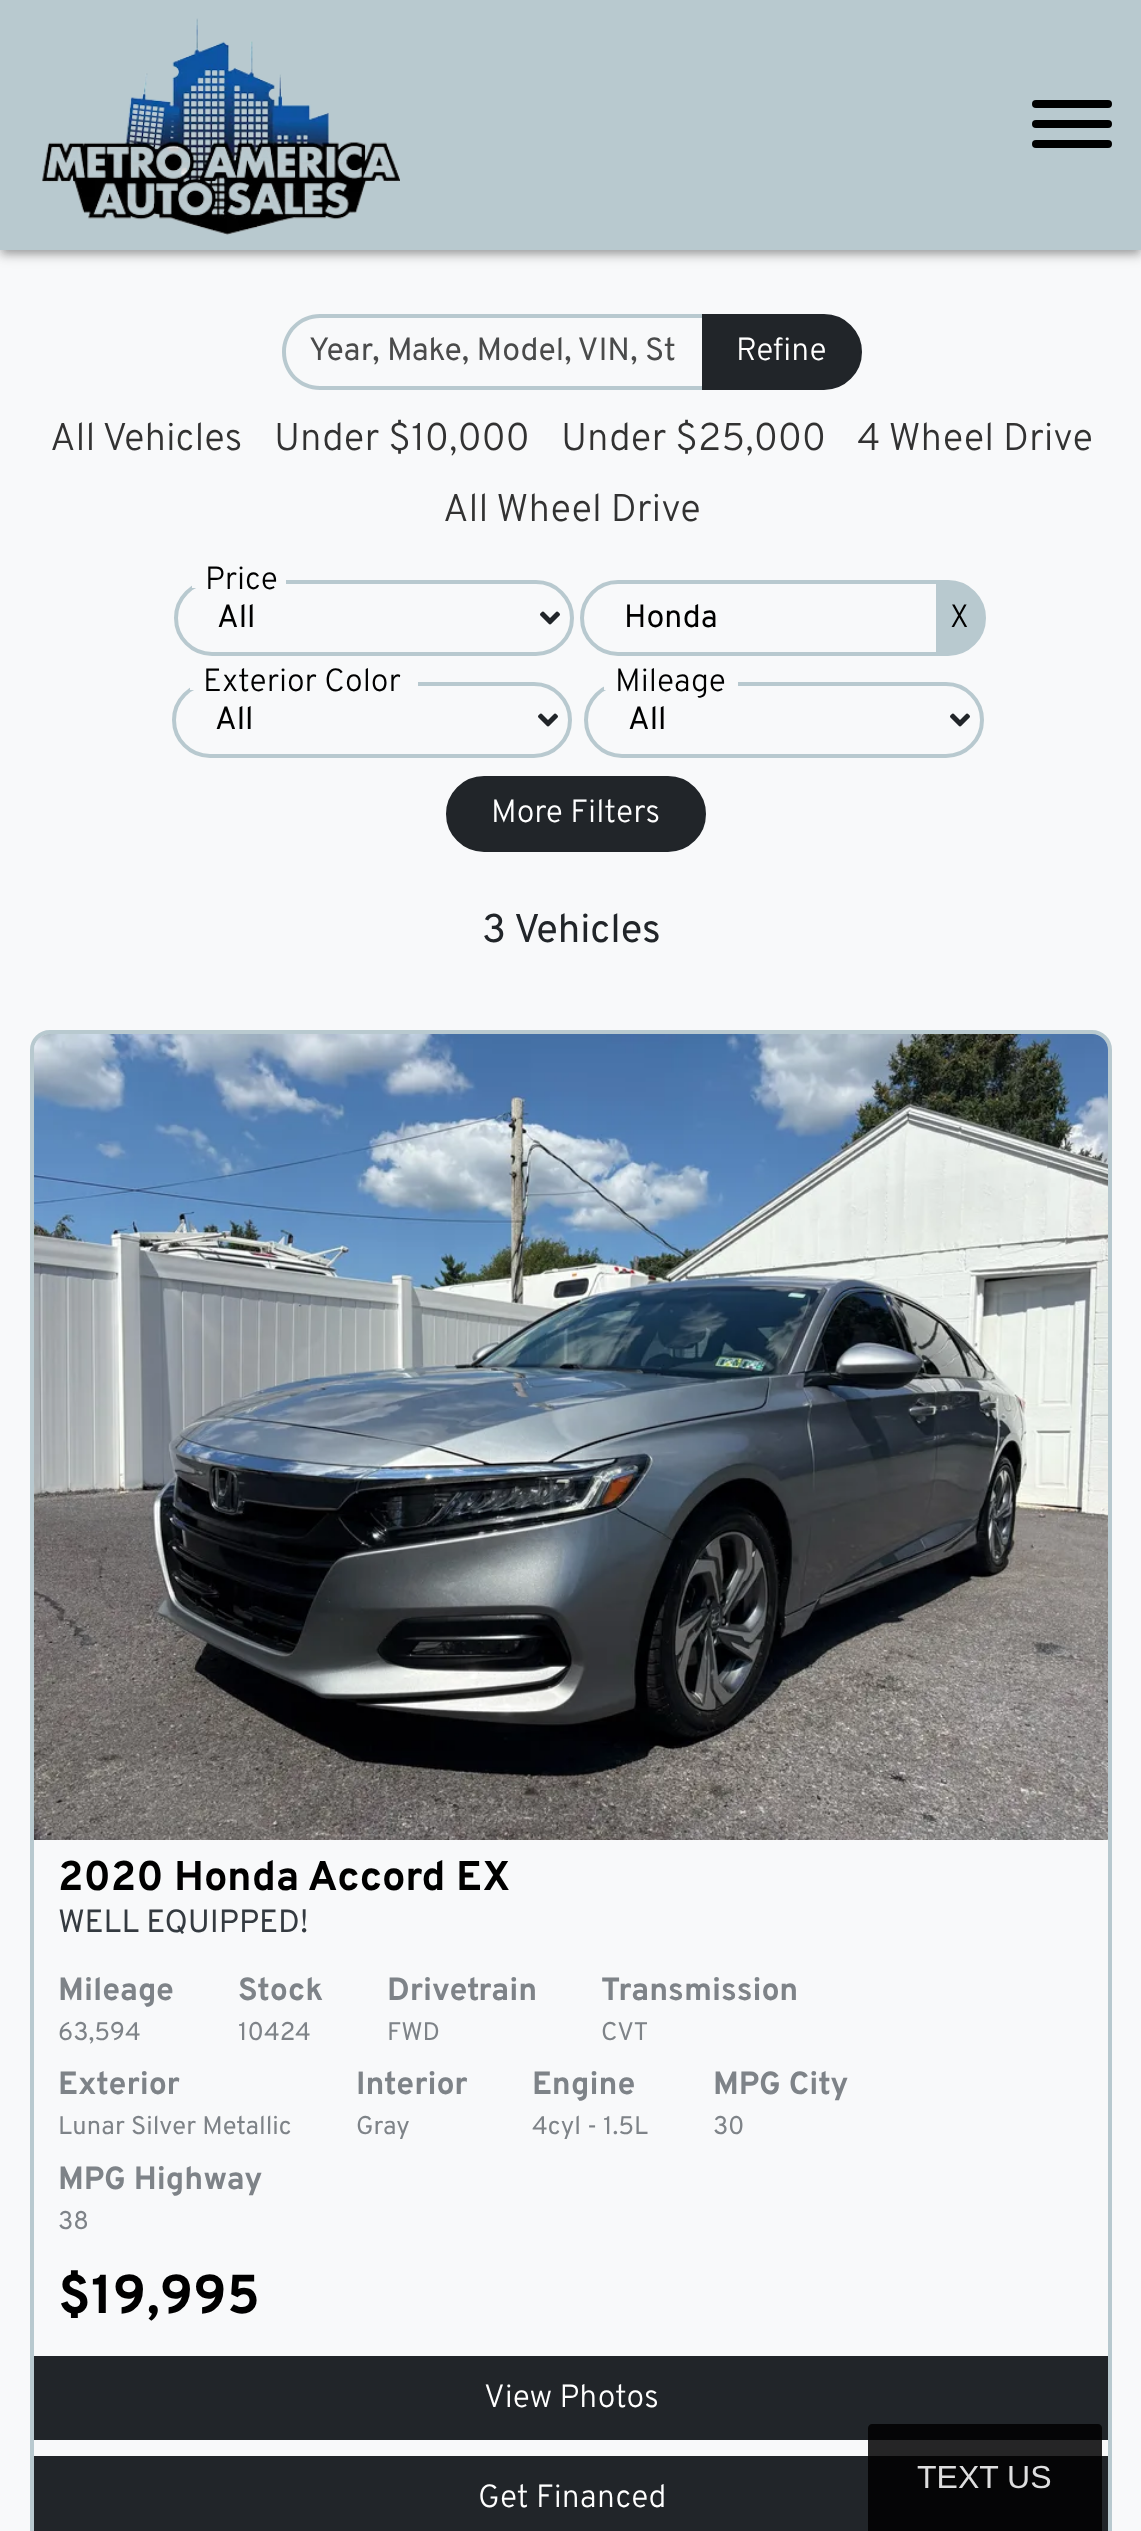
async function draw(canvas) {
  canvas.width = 1141
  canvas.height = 2531
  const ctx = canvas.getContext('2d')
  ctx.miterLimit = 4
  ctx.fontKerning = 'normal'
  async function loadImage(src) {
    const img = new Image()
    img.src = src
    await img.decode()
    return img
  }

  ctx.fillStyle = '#f8f9fa'
  ctx.fillRect(0, 0, 1141, 2531)
  ctx.fillStyle = '#0000001f'
  ctx.filter = 'blur(3px)'
  ctx.beginPath()
  ctx.rect(4, 10, 1134, 242)
  ctx.fill()
  ctx.filter = 'none'
  ctx.fillStyle = '#00000024'
  ctx.filter = 'blur(4px)'
  ctx.beginPath()
  ctx.rect(0, 6, 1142, 250)
  ctx.fill()
  ctx.filter = 'none'
  ctx.fillStyle = '#00000033'
  ctx.filter = 'blur(8px)'
  ctx.beginPath()
  ctx.rect(0, 2, 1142, 250)
  ctx.fill()
  ctx.filter = 'none'
  ctx.fillStyle = '#b8c9cf'
  ctx.fillRect(0, 0, 1141, 250)
  ctx.drawImage(await loadImage('image0.png'), 41, 18, 359, 217)
  ctx.fillStyle = '#000'
  ctx.beginPath()
  ctx.roundRect(1032, 120, 80, 8, 4)
  ctx.fill()
  ctx.beginPath()
  ctx.roundRect(1032, 100, 80, 8, 4)
  ctx.fill()
  ctx.beginPath()
  ctx.roundRect(1032, 140, 80, 8, 4)
  ctx.fill()
  ctx.fillStyle = '#b8c9cf'
  ctx.beginPath()
  ctx.moveTo(320, 314)
  ctx.lineTo(702, 314)
  ctx.lineTo(702, 390)
  ctx.lineTo(320, 390)
  ctx.bezierCurveTo(299, 390, 282, 373, 282, 352)
  ctx.bezierCurveTo(282, 331, 299, 314, 320, 314)
  ctx.closePath()
  ctx.moveTo(320, 318)
  ctx.lineTo(702, 318)
  ctx.lineTo(702, 386)
  ctx.lineTo(320, 386)
  ctx.bezierCurveTo(301, 386, 286, 371, 286, 352)
  ctx.bezierCurveTo(286, 333, 301, 318, 320, 318)
  ctx.closePath()
  ctx.fill('evenodd')
  ctx.font = '32px Overpass'
  ctx.fillStyle = '#4a4b4b'
  ctx.fillText('Year, Make, Model, VIN, St', 309, 360)
  ctx.fillStyle = '#212529'
  ctx.beginPath()
  ctx.roundRect(703, 315, 158, 74, [0, 37, 37, 0])
  ctx.fill()
  ctx.strokeStyle = '#212529'
  ctx.lineWidth = 2
  ctx.stroke()
  ctx.font = '300 32px Overpass'
  ctx.fillStyle = '#fff'
  ctx.fillText('Refine', 736, 360)
  ctx.font = '300 38.5px Overpass'
  ctx.fillStyle = '#323232'
  ctx.fillText('All Vehicles', 50, 450)
  ctx.fillText('Under $10,000', 274, 450)
  ctx.fillText('Under $25,000', 561, 450)
  ctx.fillText('4 Wheel Drive', 857, 450)
  ctx.fillText('All Wheel Drive', 443, 521)
  ctx.beginPath()
  ctx.roundRect(176, 582, 396, 72, 36)
  ctx.strokeStyle = '#b8c9cf'
  ctx.lineWidth = 4
  ctx.stroke()
  ctx.font = '32px Overpass'
  ctx.fillStyle = '#000'
  ctx.fillText('All', 217, 627)
  ctx.fillStyle = '#f8f9fa'
  ctx.fillRect(196, 580, 90, 24)
  ctx.fillRect(192, 583, 4, 5)
  ctx.font = '300 32px Overpass'
  ctx.fillStyle = '#000'
  ctx.fillText('Price', 205, 589)
  ctx.drawImage(await loadImage('image1.png'), 540, 611, 20, 14)
  ctx.beginPath()
  ctx.roundRect(582, 582, 396, 72, 36)
  ctx.stroke()
  ctx.font = '32px Overpass'
  ctx.fillText('Honda', 624, 627)
  ctx.fillStyle = '#b8c9cf'
  ctx.beginPath()
  ctx.roundRect(937, 581, 48, 74, [0, 37, 37, 0])
  ctx.fill()
  ctx.lineWidth = 2
  ctx.stroke()
  ctx.font = '300 32px Overpass'
  ctx.fillStyle = '#000'
  ctx.fillText('X', 950, 627)
  ctx.beginPath()
  ctx.roundRect(174, 684, 396, 72, 36)
  ctx.lineWidth = 4
  ctx.stroke()
  ctx.font = '32px Overpass'
  ctx.fillText('All', 215, 729)
  ctx.fillStyle = '#f8f9fa'
  ctx.fillRect(194, 682, 214, 24)
  ctx.fillRect(190, 682, 228, 8)
  ctx.font = '300 32px Overpass'
  ctx.fillStyle = '#000'
  ctx.fillText('Exterior Color', 203, 691)
  ctx.drawImage(await loadImage('image1.png'), 538, 713, 20, 14)
  ctx.beginPath()
  ctx.roundRect(586, 684, 396, 72, 36)
  ctx.stroke()
  ctx.font = '32px Overpass'
  ctx.fillText('All', 628, 729)
  ctx.fillStyle = '#f8f9fa'
  ctx.fillRect(608, 682, 126, 24)
  ctx.fillRect(604, 682, 134, 8)
  ctx.font = '300 32px Overpass'
  ctx.fillStyle = '#000'
  ctx.fillText('Mileage', 615, 691)
  ctx.drawImage(await loadImage('image1.png'), 950, 713, 20, 14)
  ctx.fillStyle = '#212529'
  ctx.beginPath()
  ctx.roundRect(447, 777, 258, 74, 37)
  ctx.fill()
  ctx.strokeStyle = '#212529'
  ctx.lineWidth = 2
  ctx.stroke()
  ctx.fillStyle = '#fff'
  ctx.fillText('More Filters', 491, 822)
  ctx.font = '40px Overpass'
  ctx.fillStyle = '#212529'
  ctx.fillText('3 Vehicles', 482, 942)
  ctx.beginPath()
  ctx.roundRect(32, 1032, 1078, 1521, 18)
  ctx.strokeStyle = '#b8c9cf'
  ctx.lineWidth = 4
  ctx.stroke()
  ctx.fillStyle = '#b8c9cf'
  ctx.beginPath()
  ctx.roundRect(34, 1034, 1074, 806, [16, 16, 0, 0])
  ctx.fill()
  ctx.drawImage(await loadImage('image2.png'), 34, 1034, 1074, 806)
  ctx.font = 'bold 41.6px Overpass'
  ctx.fillStyle = '#000'
  ctx.fillText('2020 Honda Accord EX', 58, 1890)
  ctx.font = '32px Overpass'
  ctx.fillStyle = '#343a40'
  ctx.fillText('WELL EQUIPPED!', 58, 1932)
  ctx.font = 'bold 32px Overpass'
  ctx.fillStyle = '#7e8388'
  ctx.fillText('Mileage', 58, 2000)
  ctx.font = '25.5px Overpass'
  ctx.fillText('63,594', 58, 2040)
  ctx.font = 'bold 32px Overpass'
  ctx.fillText('Stock', 238, 2000)
  ctx.font = '25.5px Overpass'
  ctx.fillText('10424', 238, 2040)
  ctx.font = 'bold 32px Overpass'
  ctx.fillText('Drivetrain', 387, 2000)
  ctx.font = '25.5px Overpass'
  ctx.fillText('FWD', 387, 2040)
  ctx.font = 'bold 32px Overpass'
  ctx.fillText('Transmission', 601, 2000)
  ctx.font = '25.5px Overpass'
  ctx.fillText('CVT', 601, 2040)
  ctx.font = 'bold 32px Overpass'
  ctx.fillText('Exterior', 58, 2094)
  ctx.font = '25.5px Overpass'
  ctx.fillText('Lunar Silver Metallic', 58, 2134)
  ctx.font = 'bold 32px Overpass'
  ctx.fillText('Interior', 356, 2094)
  ctx.font = '25.5px Overpass'
  ctx.fillText('Gray', 356, 2134)
  ctx.font = 'bold 32px Overpass'
  ctx.fillText('Engine', 532, 2094)
  ctx.font = '25.5px Overpass'
  ctx.fillText('4cyl - 1.5L', 532, 2134)
  ctx.font = 'bold 32px Overpass'
  ctx.fillText('MPG City', 713, 2094)
  ctx.font = '25.5px Overpass'
  ctx.fillText('30', 713, 2134)
  ctx.font = 'bold 32px Overpass'
  ctx.fillText('MPG Highway', 58, 2189)
  ctx.font = '25.5px Overpass'
  ctx.fillText('38', 58, 2229)
  ctx.font = 'bold 54.5px Overpass'
  ctx.fillStyle = '#000'
  ctx.fillText('$19,995', 58, 2313)
  ctx.fillStyle = '#212529'
  ctx.fillRect(34, 2356, 1074, 84)
  ctx.font = '300 32px Overpass'
  ctx.fillStyle = '#fff'
  ctx.fillText('View Photos', 484, 2407)
  ctx.fillStyle = '#212529'
  ctx.fillRect(34, 2456, 1074, 75)
  ctx.fillStyle = '#fff'
  ctx.fillText('Get Financed', 478, 2507)
  ctx.fillStyle = '#000000d9'
  ctx.beginPath()
  ctx.moveTo(872, 2424)
  ctx.lineTo(1098, 2424)
  ctx.bezierCurveTo(1100, 2424, 1102, 2426, 1102, 2428)
  ctx.lineTo(1102, 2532)
  ctx.lineTo(868, 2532)
  ctx.lineTo(868, 2428)
  ctx.bezierCurveTo(868, 2426, 870, 2424, 872, 2424)
  ctx.closePath()
  ctx.fill()
  ctx.font = '32px Liberation Sans'
  ctx.fillStyle = '#dededf'
  ctx.fillText('TEXT US', 917, 2488)
}

draw(document.querySelector('canvas'))
